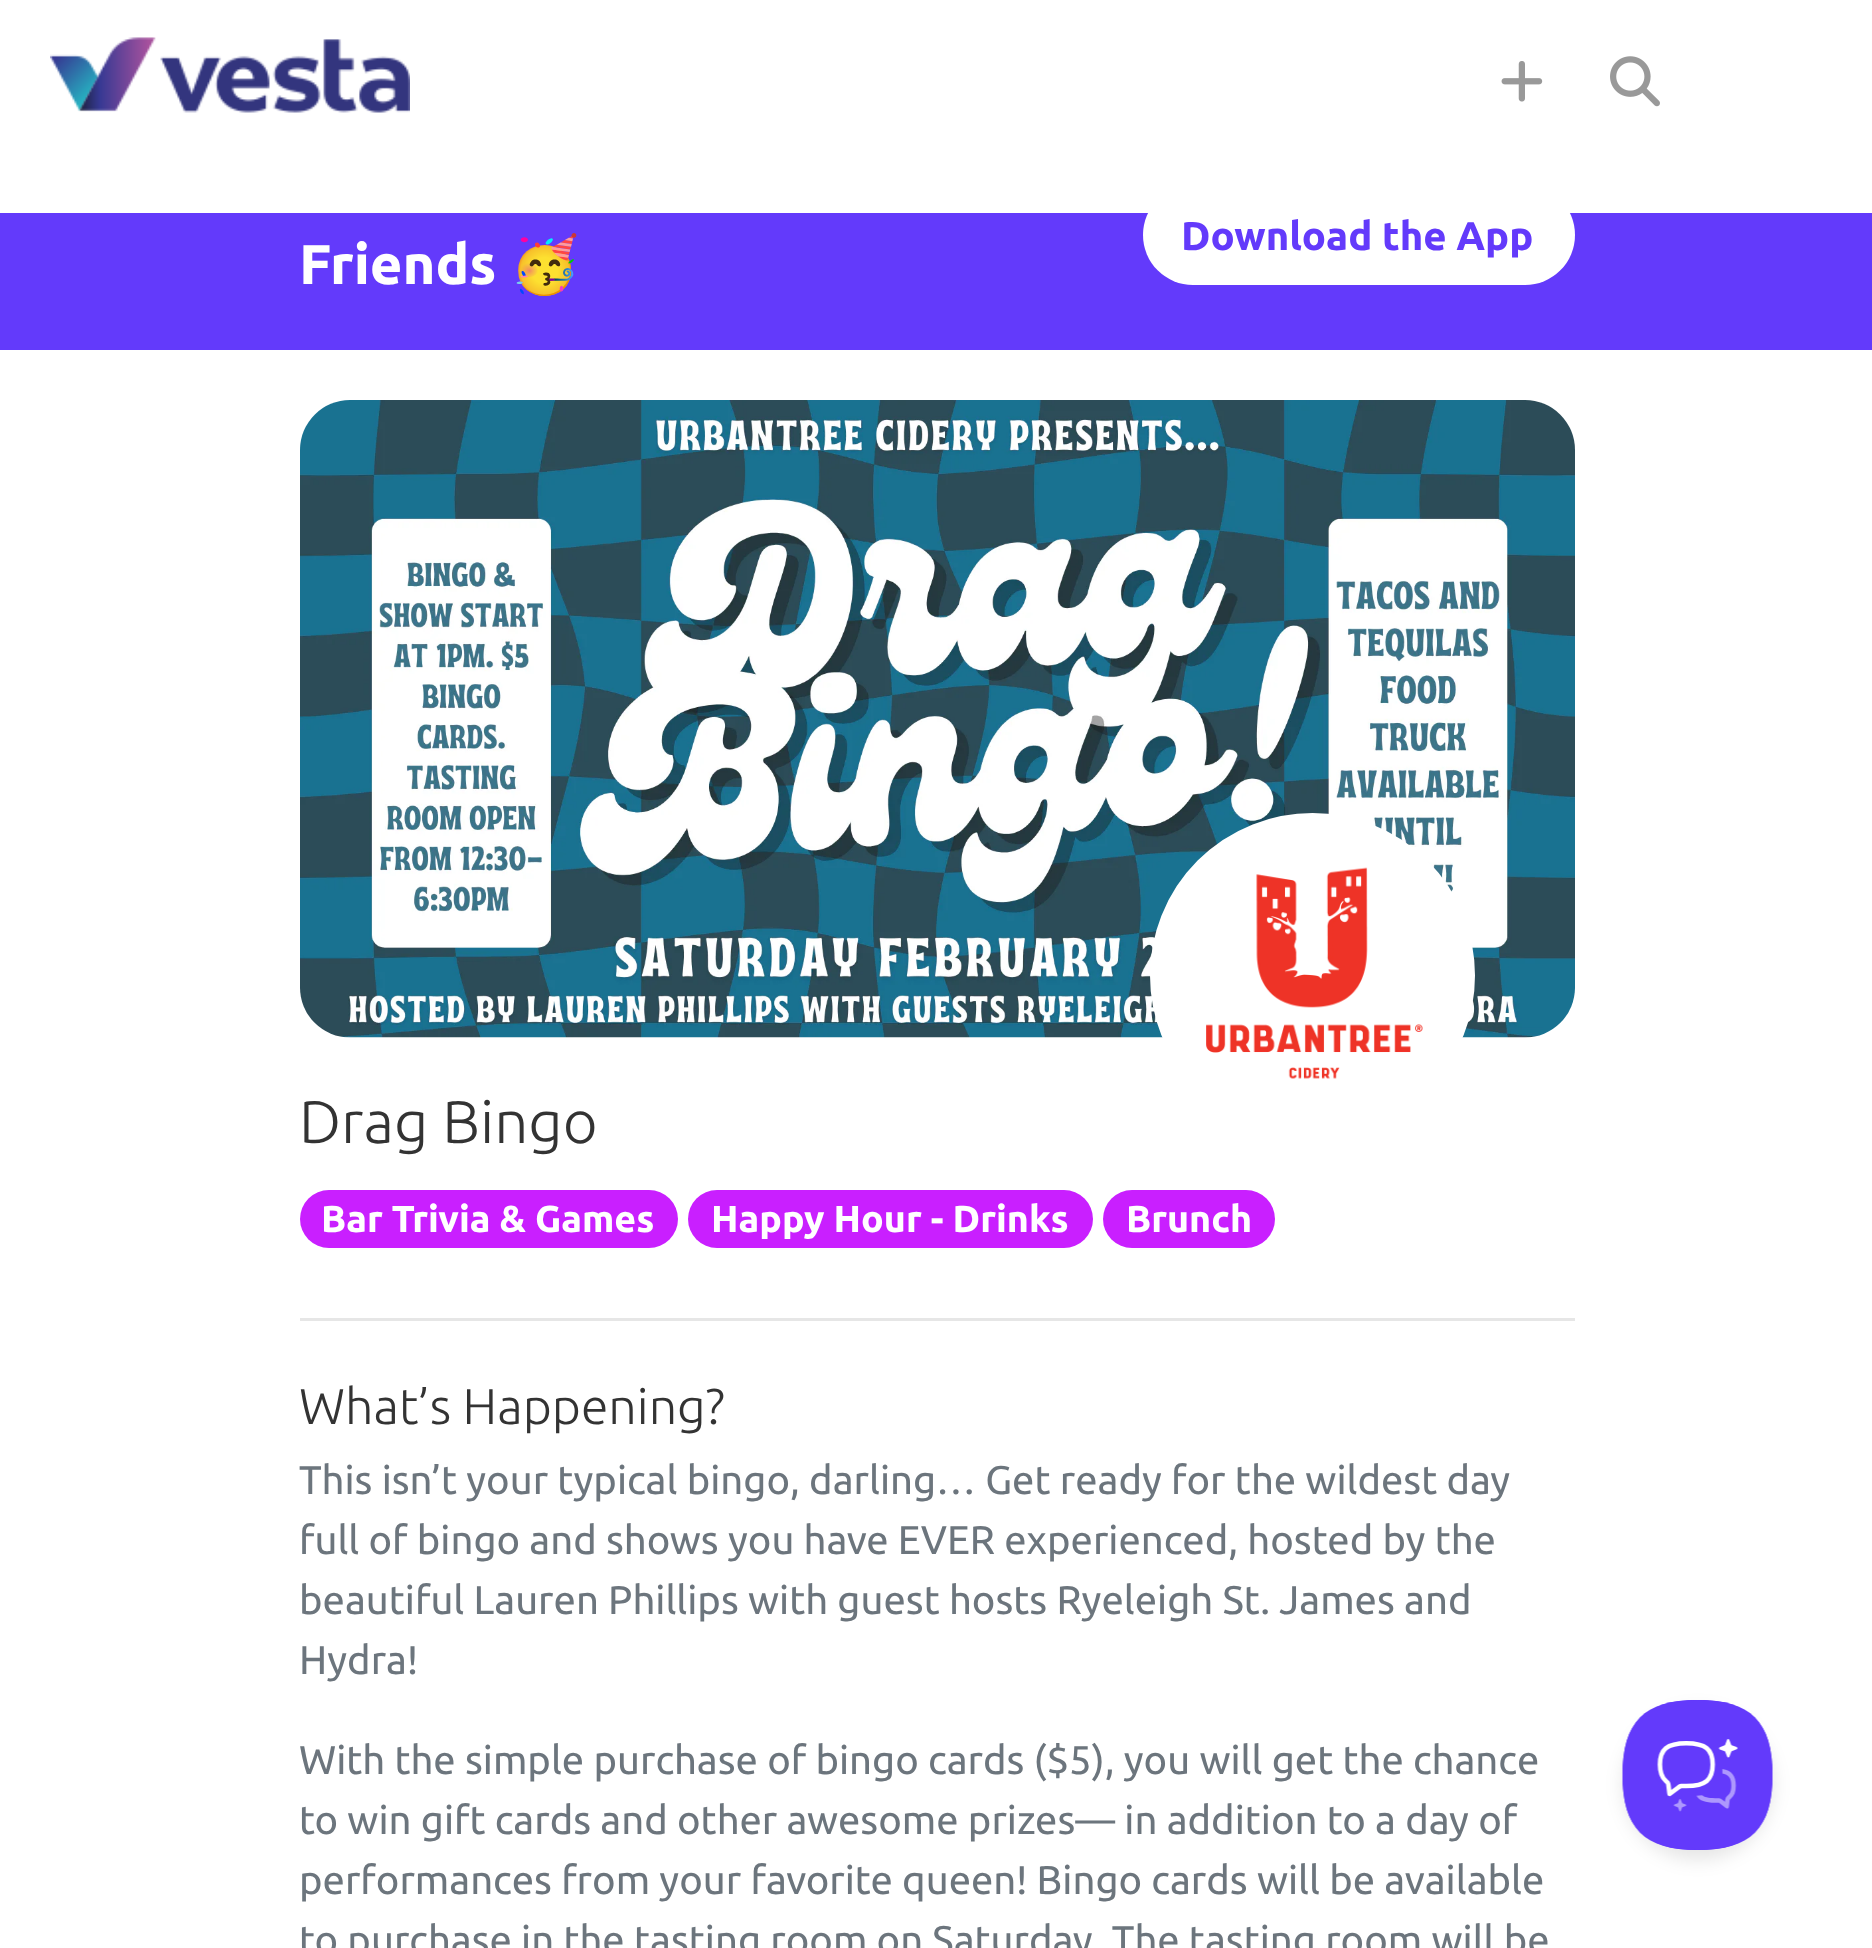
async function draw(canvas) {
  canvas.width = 1872
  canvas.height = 1948
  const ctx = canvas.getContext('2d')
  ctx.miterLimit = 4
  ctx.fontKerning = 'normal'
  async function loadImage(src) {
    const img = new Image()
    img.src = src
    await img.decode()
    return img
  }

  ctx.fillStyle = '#fff'
  ctx.fillRect(0, 0, 1872, 1948)
  ctx.drawImage(await loadImage('image0.png'), 50, 37, 360, 76)
  ctx.drawImage(await loadImage('image1.png'), 1501, 61, 42, 41)
  ctx.drawImage(await loadImage('image2.png'), 1610, 56, 50, 51)
  ctx.fillStyle = '#633afb'
  ctx.fillRect(0, 213, 1872, 137)
  ctx.font = 'bold 56px Ubuntu'
  ctx.fillStyle = '#fff'
  ctx.fillText('Friends', 299, 284)
  ctx.font = 'bold 56px Noto Color Emoji'
  ctx.fillText('🥳', 510, 284)
  ctx.beginPath()
  ctx.roundRect(1143, 185, 432, 100, 50)
  ctx.fill()
  ctx.font = 'bold 40px Ubuntu'
  ctx.fillStyle = '#633afb'
  ctx.fillText('Download the App', 1181, 250)
  ctx.drawImage(await loadImage('image3.png'), 300, 400, 1275, 638)
  ctx.fillStyle = '#fff'
  ctx.beginPath()
  ctx.arc(1312.5, 975.5, 152.5, 0, 2 * Math.PI)
  ctx.fill()
  ctx.strokeStyle = '#fff'
  ctx.lineWidth = 20
  ctx.stroke()
  ctx.drawImage(await loadImage('image4.png'), 1206, 867, 217, 212)
  ctx.font = '300 60px Ubuntu'
  ctx.fillStyle = '#333'
  ctx.fillText('Drag Bingo', 299, 1143)
  ctx.fillStyle = '#c91fff'
  ctx.beginPath()
  ctx.roundRect(300, 1190, 378, 58, 29)
  ctx.fill()
  ctx.font = 'bold 37.5px Ubuntu'
  ctx.fillStyle = '#fff'
  ctx.fillText('Bar Trivia & Games', 321, 1232)
  ctx.fillStyle = '#c91fff'
  ctx.beginPath()
  ctx.roundRect(688, 1190, 405, 58, 29)
  ctx.fill()
  ctx.fillStyle = '#fff'
  ctx.fillText('Happy Hour - Drinks', 711, 1232)
  ctx.fillStyle = '#c91fff'
  ctx.beginPath()
  ctx.roundRect(1103, 1190, 172, 58, 29)
  ctx.fill()
  ctx.fillStyle = '#fff'
  ctx.fillText('Brunch', 1126, 1232)
  ctx.fillStyle = '#e6e6e6'
  ctx.fillRect(300, 1318, 1275, 3)
  ctx.font = '300 50px Ubuntu'
  ctx.fillStyle = '#333'
  ctx.fillText('What’s Happening?', 299, 1424)
  ctx.font = '40px Ubuntu'
  ctx.fillStyle = '#6c757d'
  ctx.fillText('This isn’t your typical bingo, darling… Get ready for the wildest day', 299, 1494)
  ctx.fillText('full of bingo and shows you have EVER experienced, hosted by the', 299, 1554)
  ctx.fillText('beautiful Lauren Phillips with guest hosts Ryeleigh St. James and', 299, 1614)
  ctx.fillText('Hydra!', 299, 1674)
  ctx.fillText('With the simple purchase of bingo cards ($5), you will get the chance', 299, 1774)
  ctx.fillText('to win gift cards and other awesome prizes— in addition to a day of', 299, 1834)
  ctx.fillText('performances from your favorite queen! Bingo cards will be available', 299, 1894)
  ctx.fillText('to purchase in the tasting room on Saturday. The tasting room will be', 299, 1954)
  ctx.fillStyle = '#0000001a'
  ctx.filter = 'blur(9px)'
  ctx.beginPath()
  ctx.roundRect(1623, 1710, 150, 150, 75)
  ctx.fill()
  ctx.filter = 'none'
  ctx.drawImage(await loadImage('image5.png'), 1622, 1700, 151, 150)
}

draw(document.querySelector('canvas'))
